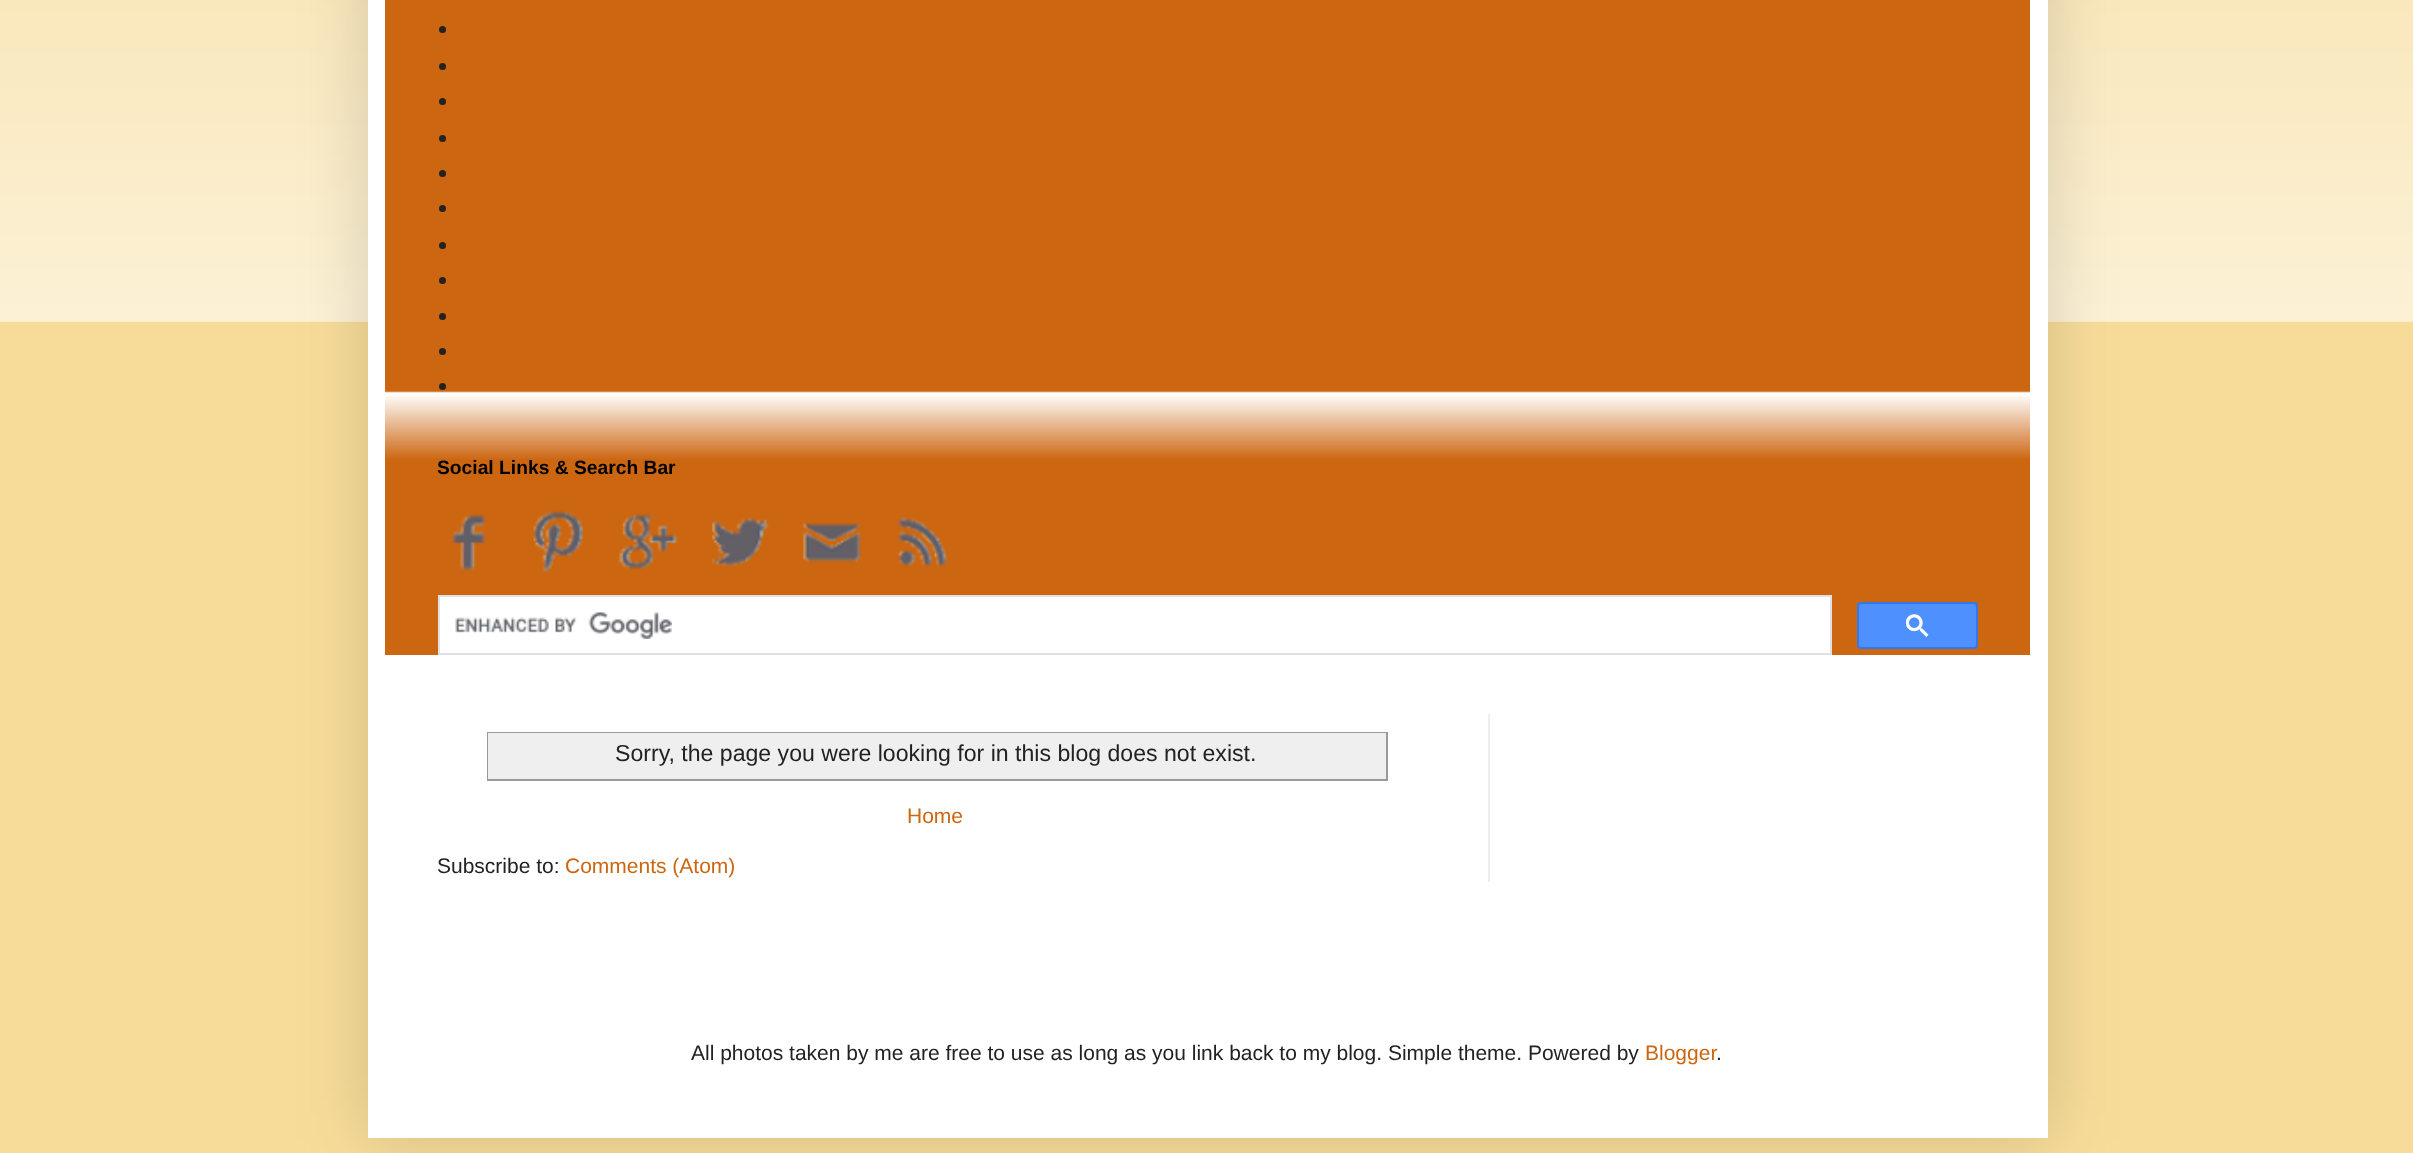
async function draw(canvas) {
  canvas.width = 2413
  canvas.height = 1153
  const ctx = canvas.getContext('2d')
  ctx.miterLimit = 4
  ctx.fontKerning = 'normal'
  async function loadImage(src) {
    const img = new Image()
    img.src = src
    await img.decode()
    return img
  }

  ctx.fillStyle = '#f7dc99'
  ctx.fillRect(0, 0, 2413, 1153)
  ctx.drawImage(await loadImage('image0.png'), 0, 0, 2413, 322)
  ctx.fillStyle = '#00000026'
  ctx.filter = 'blur(35px)'
  ctx.beginPath()
  ctx.rect(368, -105, 1680, 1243)
  ctx.fill()
  ctx.filter = 'none'
  ctx.fillStyle = '#fff'
  ctx.fillRect(368, 0, 1680, 1138)
  ctx.fillStyle = '#c61'
  ctx.fillRect(385, 0, 1645, 655)
  ctx.drawImage(await loadImage('image1.png'), 385, 391, 1645, 68)
  ctx.fillStyle = '#222'
  ctx.beginPath()
  ctx.arc(442.5, 29.5, 3.5, 0, 2 * Math.PI)
  ctx.fill()
  ctx.beginPath()
  ctx.arc(442.5, 66.5, 3.5, 0, 2 * Math.PI)
  ctx.fill()
  ctx.beginPath()
  ctx.arc(442.5, 101.5, 3.5, 0, 2 * Math.PI)
  ctx.fill()
  ctx.beginPath()
  ctx.arc(442.5, 138.5, 3.5, 0, 2 * Math.PI)
  ctx.fill()
  ctx.beginPath()
  ctx.arc(442.5, 173.5, 3.5, 0, 2 * Math.PI)
  ctx.fill()
  ctx.beginPath()
  ctx.arc(442.5, 208.5, 3.5, 0, 2 * Math.PI)
  ctx.fill()
  ctx.beginPath()
  ctx.arc(442.5, 245.5, 3.5, 0, 2 * Math.PI)
  ctx.fill()
  ctx.beginPath()
  ctx.arc(442.5, 280.5, 3.5, 0, 2 * Math.PI)
  ctx.fill()
  ctx.beginPath()
  ctx.arc(442.5, 316.5, 3.5, 0, 2 * Math.PI)
  ctx.fill()
  ctx.beginPath()
  ctx.arc(442.5, 351.5, 3.5, 0, 2 * Math.PI)
  ctx.fill()
  ctx.beginPath()
  ctx.arc(442.5, 386.5, 3.5, 0, 2 * Math.PI)
  ctx.fill()
  ctx.font = 'bold 19.25px Liberation Sans'
  ctx.fillStyle = '#000'
  ctx.fillText('Social Links & Search Bar', 437, 474)
  ctx.drawImage(await loadImage('image2.png'), 451, 510, 496, 63)
  ctx.fillStyle = '#fff'
  ctx.beginPath()
  ctx.rect(439, 596, 1392, 58)
  ctx.fill()
  ctx.strokeStyle = '#dfe1e5'
  ctx.lineWidth = 2
  ctx.stroke()
  ctx.drawImage(await loadImage('image3.png'), 455, 612, 217, 27)
  ctx.fillStyle = '#4d90fe'
  ctx.beginPath()
  ctx.roundRect(1858, 603, 119, 45, 3)
  ctx.fill()
  ctx.strokeStyle = '#3079ed'
  ctx.stroke()
  ctx.drawImage(await loadImage('image4.png'), 1906, 614, 23, 23)
  ctx.strokeStyle = '#999'
  ctx.strokeRect(488, 733, 899, 47)
  ctx.fillStyle = '#efefef'
  ctx.fillRect(488, 733, 898, 46)
  ctx.font = '23.1px Liberation Sans'
  ctx.fillStyle = '#222'
  ctx.fillText('Sorry, the page you were looking for in this blog does not exist.', 615, 761)
  ctx.font = '21px Liberation Sans'
  ctx.fillStyle = '#c61'
  ctx.fillText('Home', 907, 823)
  ctx.fillStyle = '#222'
  ctx.fillText('Subscribe to:', 437, 873)
  ctx.fillStyle = '#c61'
  ctx.fillText('Comments (Atom)', 565, 873)
  ctx.fillStyle = '#eee'
  ctx.fillRect(1488, 714, 2, 168)
  ctx.fillStyle = '#222'
  ctx.fillText('All photos taken by me are free to use as long as you link back to my blog. Simple theme. Powered by', 691, 1060)
  ctx.fillStyle = '#c61'
  ctx.fillText('Blogger', 1645, 1060)
  ctx.fillStyle = '#222'
  ctx.fillText('.', 1716, 1060)
}

draw(document.querySelector('canvas'))
